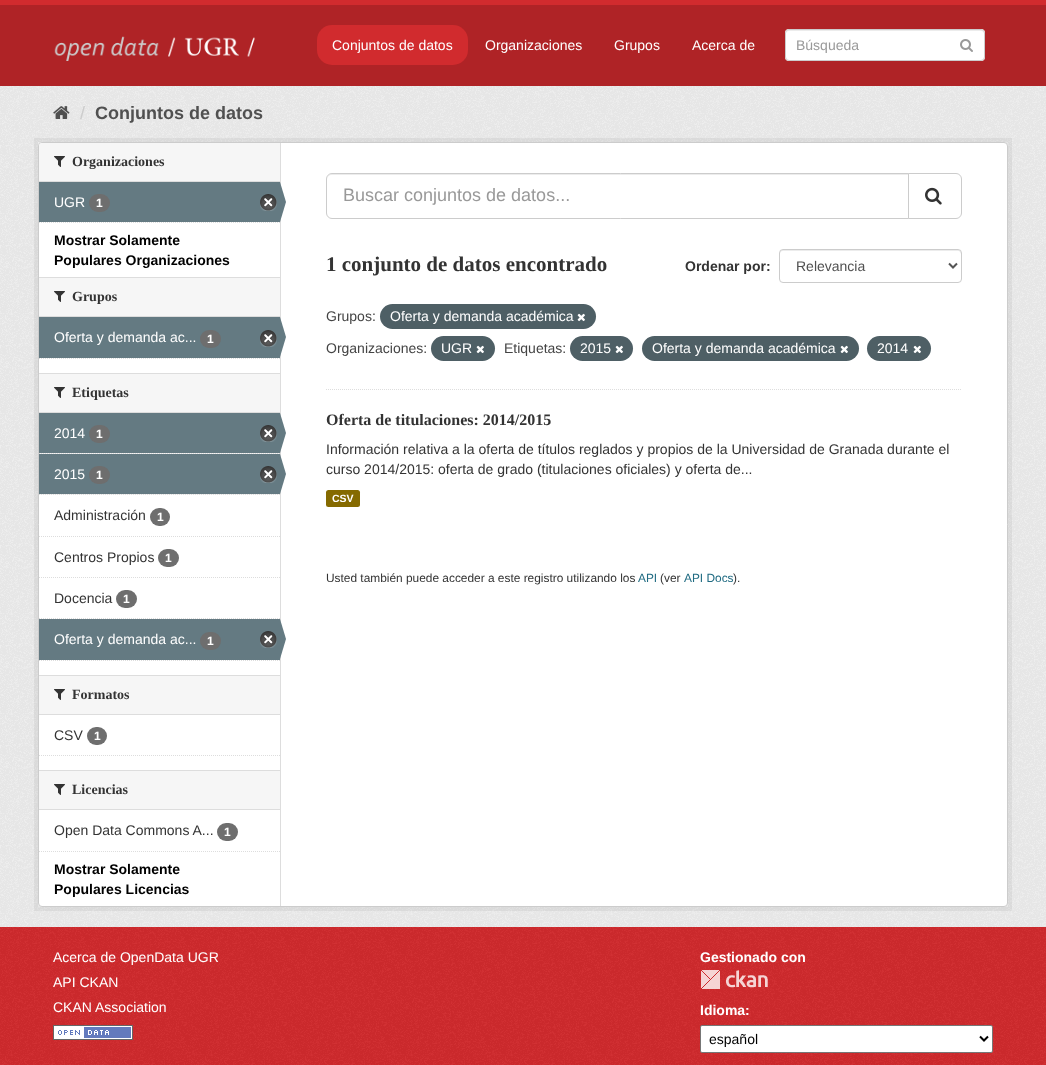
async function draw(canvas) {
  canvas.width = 1046
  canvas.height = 1065
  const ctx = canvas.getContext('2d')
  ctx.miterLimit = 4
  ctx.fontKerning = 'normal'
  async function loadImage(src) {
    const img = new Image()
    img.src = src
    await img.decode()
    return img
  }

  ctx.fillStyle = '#d12b2e'
  ctx.fillRect(0, 0, 1046, 1065)
  ctx.fillStyle = '#af2326'
  ctx.fillRect(0, 5, 1046, 81)
  ctx.drawImage(await loadImage('image0.png'), 54, 36, 201, 25)
  ctx.fillStyle = '#d12b2e'
  ctx.beginPath()
  ctx.roundRect(317, 25, 151, 40, 15)
  ctx.fill()
  ctx.font = '14px Liberation Sans'
  ctx.fillStyle = '#fff'
  ctx.fillText('Conjuntos de datos', 332, 50)
  ctx.fillText('Organizaciones', 485, 50)
  ctx.fillText('Grupos', 614, 50)
  ctx.fillText('Acerca de', 692, 50)
  ctx.beginPath()
  ctx.roundRect(785, 29, 200, 32, 4)
  ctx.fill()
  ctx.fillStyle = '#ececec'
  ctx.beginPath()
  ctx.moveTo(789, 31)
  ctx.lineTo(981, 31)
  ctx.bezierCurveTo(983, 31, 984, 32, 984, 34)
  ctx.bezierCurveTo(984, 32, 983, 30, 981, 30)
  ctx.lineTo(789, 30)
  ctx.bezierCurveTo(787, 30, 786, 32, 786, 34)
  ctx.bezierCurveTo(786, 32, 787, 31, 789, 31)
  ctx.closePath()
  ctx.fill()
  ctx.beginPath()
  ctx.roundRect(785.5, 29.5, 199, 31, 3.5)
  ctx.strokeStyle = '#ccc'
  ctx.stroke()
  ctx.fillStyle = '#999'
  ctx.fillText('Búsqueda', 796, 50)
  ctx.drawImage(await loadImage('image1.png'), 960, 39, 13, 13)
  ctx.fillStyle = '#eee'
  ctx.fillRect(0, 86, 1046, 841)
  ctx.drawImage(await loadImage('image2.png'), 0, 86, 1046, 841)
  ctx.drawImage(await loadImage('image3.png'), 53, 106, 17, 13)
  ctx.font = '18px Liberation Sans'
  ctx.fillStyle = '#ccc'
  ctx.fillText('/', 80, 119)
  ctx.font = 'bold 18px Liberation Sans'
  ctx.fillStyle = '#505050'
  ctx.fillText('Conjuntos de datos', 95, 119)
  ctx.strokeStyle = '#0000000d'
  ctx.lineWidth = 4
  ctx.strokeRect(36, 140, 974, 769)
  ctx.fillStyle = '#fff'
  ctx.beginPath()
  ctx.roundRect(38.5, 142.5, 969, 764, 3.5)
  ctx.fill()
  ctx.strokeStyle = '#ccc'
  ctx.lineWidth = 1
  ctx.stroke()
  ctx.fillStyle = '#f6f6f6'
  ctx.beginPath()
  ctx.roundRect(39, 143, 241, 39, [3, 0, 0, 0])
  ctx.fill()
  ctx.fillStyle = '#ddd'
  ctx.fillRect(39, 181, 241, 1)
  ctx.drawImage(await loadImage('image4.png'), 54, 156, 11, 11)
  ctx.font = 'bold 14px Liberation Serif'
  ctx.fillStyle = '#333'
  ctx.fillText('Organizaciones', 72, 166)
  ctx.fillStyle = '#647a82'
  ctx.fillRect(39, 182, 241, 40)
  ctx.font = '14px Liberation Sans'
  ctx.fillStyle = '#fff'
  ctx.fillText('UGR', 54, 207)
  ctx.fillStyle = '#6e6e6e'
  ctx.beginPath()
  ctx.roundRect(89, 194, 21, 18, 9)
  ctx.fill()
  ctx.font = 'bold 12px Liberation Sans'
  ctx.fillStyle = '#fff'
  ctx.fillText('1', 96, 207)
  ctx.drawImage(await loadImage('image5.png'), 260, 194, 17, 17)
  ctx.fillStyle = '#ddd'
  ctx.fillRect(280, 143, 1, 763)
  ctx.fillStyle = '#647a82'
  ctx.beginPath()
  ctx.moveTo(280, 222)
  ctx.lineTo(280, 182)
  ctx.lineTo(286, 202)
  ctx.closePath()
  ctx.fill()
  ctx.beginPath()
  ctx.moveTo(39, 222.5)
  ctx.lineTo(280, 222.5)
  ctx.strokeStyle = '#ddd'
  ctx.setLineDash([1, 1])
  ctx.stroke()
  ctx.font = 'bold 14px Liberation Sans'
  ctx.fillStyle = '#000'
  ctx.fillText('Mostrar Solamente', 54, 245)
  ctx.fillText('Populares Organizaciones', 54, 265)
  ctx.fillStyle = '#f6f6f6'
  ctx.fillRect(39, 278, 241, 38)
  ctx.fillStyle = '#ddd'
  ctx.fillRect(39, 277, 241, 1)
  ctx.fillRect(39, 316, 241, 1)
  ctx.drawImage(await loadImage('image4.png'), 54, 291, 11, 11)
  ctx.font = 'bold 14px Liberation Serif'
  ctx.fillStyle = '#333'
  ctx.fillText('Grupos', 72, 301)
  ctx.fillStyle = '#647a82'
  ctx.fillRect(39, 317, 241, 41)
  ctx.font = '14px Liberation Sans'
  ctx.fillStyle = '#fff'
  ctx.fillText('Oferta y demanda ac...', 54, 342)
  ctx.fillStyle = '#6e6e6e'
  ctx.beginPath()
  ctx.roundRect(200, 330, 21, 18, 9)
  ctx.fill()
  ctx.font = 'bold 12px Liberation Sans'
  ctx.fillStyle = '#fff'
  ctx.fillText('1', 207, 343)
  ctx.drawImage(await loadImage('image5.png'), 260, 330, 17, 17)
  ctx.fillStyle = '#647a82'
  ctx.beginPath()
  ctx.moveTo(280, 357)
  ctx.lineTo(280, 317)
  ctx.lineTo(286, 337)
  ctx.closePath()
  ctx.fill()
  ctx.beginPath()
  ctx.moveTo(39, 358.5)
  ctx.lineTo(280, 358.5)
  ctx.stroke()
  ctx.fillStyle = '#f6f6f6'
  ctx.fillRect(39, 374, 241, 38)
  ctx.fillStyle = '#ddd'
  ctx.fillRect(39, 373, 241, 1)
  ctx.fillRect(39, 412, 241, 1)
  ctx.drawImage(await loadImage('image4.png'), 54, 387, 11, 11)
  ctx.font = 'bold 14px Liberation Serif'
  ctx.fillStyle = '#333'
  ctx.fillText('Etiquetas', 72, 397)
  ctx.fillStyle = '#f6f6f6'
  ctx.fillRect(40, 453, 239, 1)
  ctx.beginPath()
  ctx.moveTo(39, 453.5)
  ctx.lineTo(280, 453.5)
  ctx.stroke()
  ctx.fillStyle = '#647a82'
  ctx.fillRect(39, 413, 241, 40)
  ctx.font = '14px Liberation Sans'
  ctx.fillStyle = '#fff'
  ctx.fillText('2014', 54, 438)
  ctx.fillStyle = '#6e6e6e'
  ctx.beginPath()
  ctx.roundRect(89, 425, 21, 18, 9)
  ctx.fill()
  ctx.font = 'bold 12px Liberation Sans'
  ctx.fillStyle = '#fff'
  ctx.fillText('1', 96, 438)
  ctx.drawImage(await loadImage('image5.png'), 260, 425, 17, 17)
  ctx.fillStyle = '#647a82'
  ctx.beginPath()
  ctx.moveTo(280, 453)
  ctx.lineTo(280, 413)
  ctx.lineTo(286, 433)
  ctx.closePath()
  ctx.fill()
  ctx.fillStyle = '#f6f6f6'
  ctx.fillRect(40, 494, 239, 1)
  ctx.beginPath()
  ctx.moveTo(39, 494.5)
  ctx.lineTo(280, 494.5)
  ctx.stroke()
  ctx.fillStyle = '#647a82'
  ctx.fillRect(39, 454, 241, 40)
  ctx.font = '14px Liberation Sans'
  ctx.fillStyle = '#fff'
  ctx.fillText('2015', 54, 479)
  ctx.fillStyle = '#6e6e6e'
  ctx.beginPath()
  ctx.roundRect(89, 466, 21, 18, 9)
  ctx.fill()
  ctx.font = 'bold 12px Liberation Sans'
  ctx.fillStyle = '#fff'
  ctx.fillText('1', 96, 479)
  ctx.drawImage(await loadImage('image5.png'), 260, 466, 17, 17)
  ctx.fillStyle = '#647a82'
  ctx.beginPath()
  ctx.moveTo(280, 494)
  ctx.lineTo(280, 454)
  ctx.lineTo(286, 474)
  ctx.closePath()
  ctx.fill()
  ctx.beginPath()
  ctx.moveTo(39, 536.5)
  ctx.lineTo(280, 536.5)
  ctx.stroke()
  ctx.font = '14px Liberation Sans'
  ctx.fillStyle = '#333'
  ctx.fillText('Administración', 54, 520)
  ctx.fillStyle = '#6e6e6e'
  ctx.beginPath()
  ctx.roundRect(150, 508, 20, 18, 9)
  ctx.fill()
  ctx.font = 'bold 12px Liberation Sans'
  ctx.fillStyle = '#fff'
  ctx.fillText('1', 157, 521)
  ctx.beginPath()
  ctx.moveTo(39, 577.5)
  ctx.lineTo(280, 577.5)
  ctx.stroke()
  ctx.font = '14px Liberation Sans'
  ctx.fillStyle = '#333'
  ctx.fillText('Centros Propios', 54, 562)
  ctx.fillStyle = '#6e6e6e'
  ctx.beginPath()
  ctx.roundRect(158, 549, 21, 18, 9)
  ctx.fill()
  ctx.font = 'bold 12px Liberation Sans'
  ctx.fillStyle = '#fff'
  ctx.fillText('1', 165, 562)
  ctx.beginPath()
  ctx.moveTo(39, 618.5)
  ctx.lineTo(280, 618.5)
  ctx.stroke()
  ctx.font = '14px Liberation Sans'
  ctx.fillStyle = '#333'
  ctx.fillText('Docencia', 54, 603)
  ctx.fillStyle = '#6e6e6e'
  ctx.beginPath()
  ctx.roundRect(116, 590, 21, 18, 9)
  ctx.fill()
  ctx.font = 'bold 12px Liberation Sans'
  ctx.fillStyle = '#fff'
  ctx.fillText('1', 123, 603)
  ctx.fillStyle = '#647a82'
  ctx.fillRect(39, 619, 241, 41)
  ctx.font = '14px Liberation Sans'
  ctx.fillStyle = '#fff'
  ctx.fillText('Oferta y demanda ac...', 54, 644)
  ctx.fillStyle = '#6e6e6e'
  ctx.beginPath()
  ctx.roundRect(200, 632, 21, 18, 9)
  ctx.fill()
  ctx.font = 'bold 12px Liberation Sans'
  ctx.fillStyle = '#fff'
  ctx.fillText('1', 207, 645)
  ctx.drawImage(await loadImage('image5.png'), 260, 631, 17, 17)
  ctx.fillStyle = '#647a82'
  ctx.beginPath()
  ctx.moveTo(280, 659)
  ctx.lineTo(280, 619)
  ctx.lineTo(286, 639)
  ctx.closePath()
  ctx.fill()
  ctx.beginPath()
  ctx.moveTo(39, 660.5)
  ctx.lineTo(280, 660.5)
  ctx.stroke()
  ctx.fillStyle = '#f6f6f6'
  ctx.fillRect(39, 676, 241, 38)
  ctx.fillStyle = '#ddd'
  ctx.fillRect(39, 675, 241, 1)
  ctx.fillRect(39, 714, 241, 1)
  ctx.drawImage(await loadImage('image4.png'), 54, 689, 11, 11)
  ctx.font = 'bold 14px Liberation Serif'
  ctx.fillStyle = '#333'
  ctx.fillText('Formatos', 72, 699)
  ctx.font = '14px Liberation Sans'
  ctx.fillText('CSV', 54, 740)
  ctx.fillStyle = '#6e6e6e'
  ctx.beginPath()
  ctx.roundRect(87, 727, 20, 18, 9)
  ctx.fill()
  ctx.font = 'bold 12px Liberation Sans'
  ctx.fillStyle = '#fff'
  ctx.fillText('1', 94, 740)
  ctx.beginPath()
  ctx.moveTo(39, 755.5)
  ctx.lineTo(280, 755.5)
  ctx.stroke()
  ctx.fillStyle = '#f6f6f6'
  ctx.fillRect(39, 771, 241, 38)
  ctx.fillStyle = '#ddd'
  ctx.fillRect(39, 770, 241, 1)
  ctx.fillRect(39, 809, 241, 1)
  ctx.drawImage(await loadImage('image4.png'), 54, 784, 11, 11)
  ctx.font = 'bold 14px Liberation Serif'
  ctx.fillStyle = '#333'
  ctx.fillText('Licencias', 72, 794)
  ctx.font = '14px Liberation Sans'
  ctx.fillText('Open Data Commons A...', 54, 835)
  ctx.fillStyle = '#6e6e6e'
  ctx.beginPath()
  ctx.roundRect(217, 823, 21, 18, 9)
  ctx.fill()
  ctx.font = 'bold 12px Liberation Sans'
  ctx.fillStyle = '#fff'
  ctx.fillText('1', 224, 836)
  ctx.beginPath()
  ctx.moveTo(39, 851.5)
  ctx.lineTo(280, 851.5)
  ctx.stroke()
  ctx.font = 'bold 14px Liberation Sans'
  ctx.fillStyle = '#000'
  ctx.fillText('Mostrar Solamente', 54, 874)
  ctx.fillText('Populares Licencias', 54, 894)
  ctx.beginPath()
  ctx.moveTo(326, 389.5)
  ctx.lineTo(962, 389.5)
  ctx.stroke()
  ctx.fillStyle = '#ececec'
  ctx.beginPath()
  ctx.moveTo(332, 175)
  ctx.lineTo(908, 175)
  ctx.lineTo(908, 174)
  ctx.lineTo(332, 174)
  ctx.bezierCurveTo(329, 174, 327, 177, 327, 180)
  ctx.bezierCurveTo(327, 177, 329, 175, 332, 175)
  ctx.closePath()
  ctx.fill()
  ctx.beginPath()
  ctx.roundRect(326.5, 173.5, 582, 45, [5.5, 0, 0, 5.5])
  ctx.strokeStyle = '#ccc'
  ctx.setLineDash([])
  ctx.stroke()
  ctx.font = '18px Liberation Sans'
  ctx.fillStyle = '#999'
  ctx.fillText('Buscar conjuntos de datos...', 343, 201)
  ctx.fillStyle = '#fff'
  ctx.beginPath()
  ctx.roundRect(908.5, 173.5, 53, 45, [0, 5.5, 5.5, 0])
  ctx.fill()
  ctx.stroke()
  ctx.drawImage(await loadImage('image6.png'), 925, 187, 17, 18)
  ctx.font = 'bold 21px Liberation Serif'
  ctx.fillStyle = '#333'
  ctx.fillText('1 conjunto de datos encontrado', 326, 271)
  ctx.font = 'bold 14px Liberation Sans'
  ctx.fillText('Ordenar por:', 685, 271)
  ctx.fillStyle = '#ececec'
  ctx.beginPath()
  ctx.moveTo(783, 251)
  ctx.lineTo(959, 251)
  ctx.lineTo(960, 252)
  ctx.lineTo(961, 254)
  ctx.lineTo(961, 253)
  ctx.bezierCurveTo(961, 251, 960, 250, 958, 250)
  ctx.lineTo(783, 250)
  ctx.bezierCurveTo(781, 250, 780, 251, 780, 253)
  ctx.lineTo(780, 254)
  ctx.bezierCurveTo(780, 252, 781, 251, 783, 251)
  ctx.closePath()
  ctx.fill()
  ctx.beginPath()
  ctx.roundRect(779.5, 249.5, 182, 33, 3.5)
  ctx.stroke()
  ctx.beginPath()
  ctx.moveTo(949, 263.5)
  ctx.lineTo(953, 267.5)
  ctx.lineTo(957, 263.5)
  ctx.strokeStyle = '#555'
  ctx.lineWidth = 2
  ctx.stroke()
  ctx.font = '14px Liberation Sans'
  ctx.fillStyle = '#505050'
  ctx.fillText('Relevancia', 796, 271)
  ctx.fillStyle = '#444'
  ctx.fillText('Grupos:', 326, 321)
  ctx.fillStyle = '#4e5f65'
  ctx.beginPath()
  ctx.roundRect(380, 304, 216, 25, 12.5)
  ctx.fill()
  ctx.fillStyle = '#fff'
  ctx.fillText('Oferta y demanda académica', 390, 321)
  ctx.drawImage(await loadImage('image7.png'), 577, 313, 8, 9)
  ctx.fillStyle = '#444'
  ctx.fillText('Organizaciones:', 326, 353)
  ctx.fillStyle = '#4e5f65'
  ctx.beginPath()
  ctx.roundRect(431, 336, 64, 25, 12.5)
  ctx.fill()
  ctx.fillStyle = '#fff'
  ctx.fillText('UGR', 441, 353)
  ctx.drawImage(await loadImage('image7.png'), 476, 345, 8, 9)
  ctx.fillStyle = '#444'
  ctx.fillText('Etiquetas:', 504, 353)
  ctx.fillStyle = '#4e5f65'
  ctx.beginPath()
  ctx.roundRect(570, 336, 63, 25, 12.5)
  ctx.fill()
  ctx.fillStyle = '#fff'
  ctx.fillText('2015', 580, 353)
  ctx.drawImage(await loadImage('image7.png'), 615, 345, 8, 9)
  ctx.fillStyle = '#4e5f65'
  ctx.beginPath()
  ctx.roundRect(642, 336, 217, 25, 12.5)
  ctx.fill()
  ctx.fillStyle = '#fff'
  ctx.fillText('Oferta y demanda académica', 652, 353)
  ctx.drawImage(await loadImage('image7.png'), 840, 345, 8, 9)
  ctx.fillStyle = '#4e5f65'
  ctx.beginPath()
  ctx.roundRect(867, 336, 64, 25, 12.5)
  ctx.fill()
  ctx.fillStyle = '#fff'
  ctx.fillText('2014', 877, 353)
  ctx.drawImage(await loadImage('image7.png'), 913, 345, 8, 9)
  ctx.font = 'bold 16px Liberation Serif'
  ctx.fillStyle = '#333'
  ctx.fillText('Oferta de titulaciones: 2014/2015', 326, 425)
  ctx.font = '14px Liberation Sans'
  ctx.fillText('Información relativa a la oferta de títulos reglados y propios de la Universidad de Granada durante el', 326, 454)
  ctx.fillText('curso 2014/2015: oferta de grado (titulaciones oficiales) y oferta de...', 326, 474)
  ctx.fillStyle = '#856a00'
  ctx.beginPath()
  ctx.roundRect(326, 490, 34, 17, 2.5)
  ctx.fill()
  ctx.font = 'bold 10.5px Liberation Sans'
  ctx.fillStyle = '#fff'
  ctx.fillText('CSV', 332, 502)
  ctx.font = '11.9px Liberation Sans'
  ctx.fillStyle = '#333'
  ctx.fillText('Usted también puede acceder a este registro utilizando los', 326, 582)
  ctx.fillStyle = '#206b82'
  ctx.fillText('API', 638, 582)
  ctx.fillStyle = '#333'
  ctx.fillText('(ver', 660, 582)
  ctx.fillStyle = '#206b82'
  ctx.fillText('API Docs', 684, 582)
  ctx.fillStyle = '#333'
  ctx.fillText(').', 733, 582)
  ctx.drawImage(await loadImage('image8.png'), 0, 927, 1046, 138)
  ctx.font = '14px Liberation Sans'
  ctx.fillStyle = '#fff'
  ctx.fillText('Acerca de OpenData UGR', 53, 962)
  ctx.fillText('API CKAN', 53, 987)
  ctx.fillText('CKAN Association', 53, 1012)
  ctx.drawImage(await loadImage('image9.png'), 53, 1025, 80, 15)
  ctx.font = 'bold 14px Liberation Sans'
  ctx.fillText('Gestionado con', 700, 962)
  ctx.drawImage(await loadImage('image10.png'), 701, 970, 67, 19)
  ctx.fillText('Idioma:', 700, 1015)
  ctx.beginPath()
  ctx.roundRect(700.5, 1025.5, 292, 27, 1.5)
  ctx.fill()
  ctx.strokeStyle = '#767676'
  ctx.lineWidth = 1
  ctx.stroke()
  ctx.beginPath()
  ctx.moveTo(980, 1036.5)
  ctx.lineTo(984, 1040.5)
  ctx.lineTo(988, 1036.5)
  ctx.strokeStyle = '#000'
  ctx.lineWidth = 2
  ctx.stroke()
  ctx.font = '14px Liberation Sans'
  ctx.fillStyle = '#000'
  ctx.fillText('español', 709, 1044)
}

draw(document.querySelector('canvas'))
